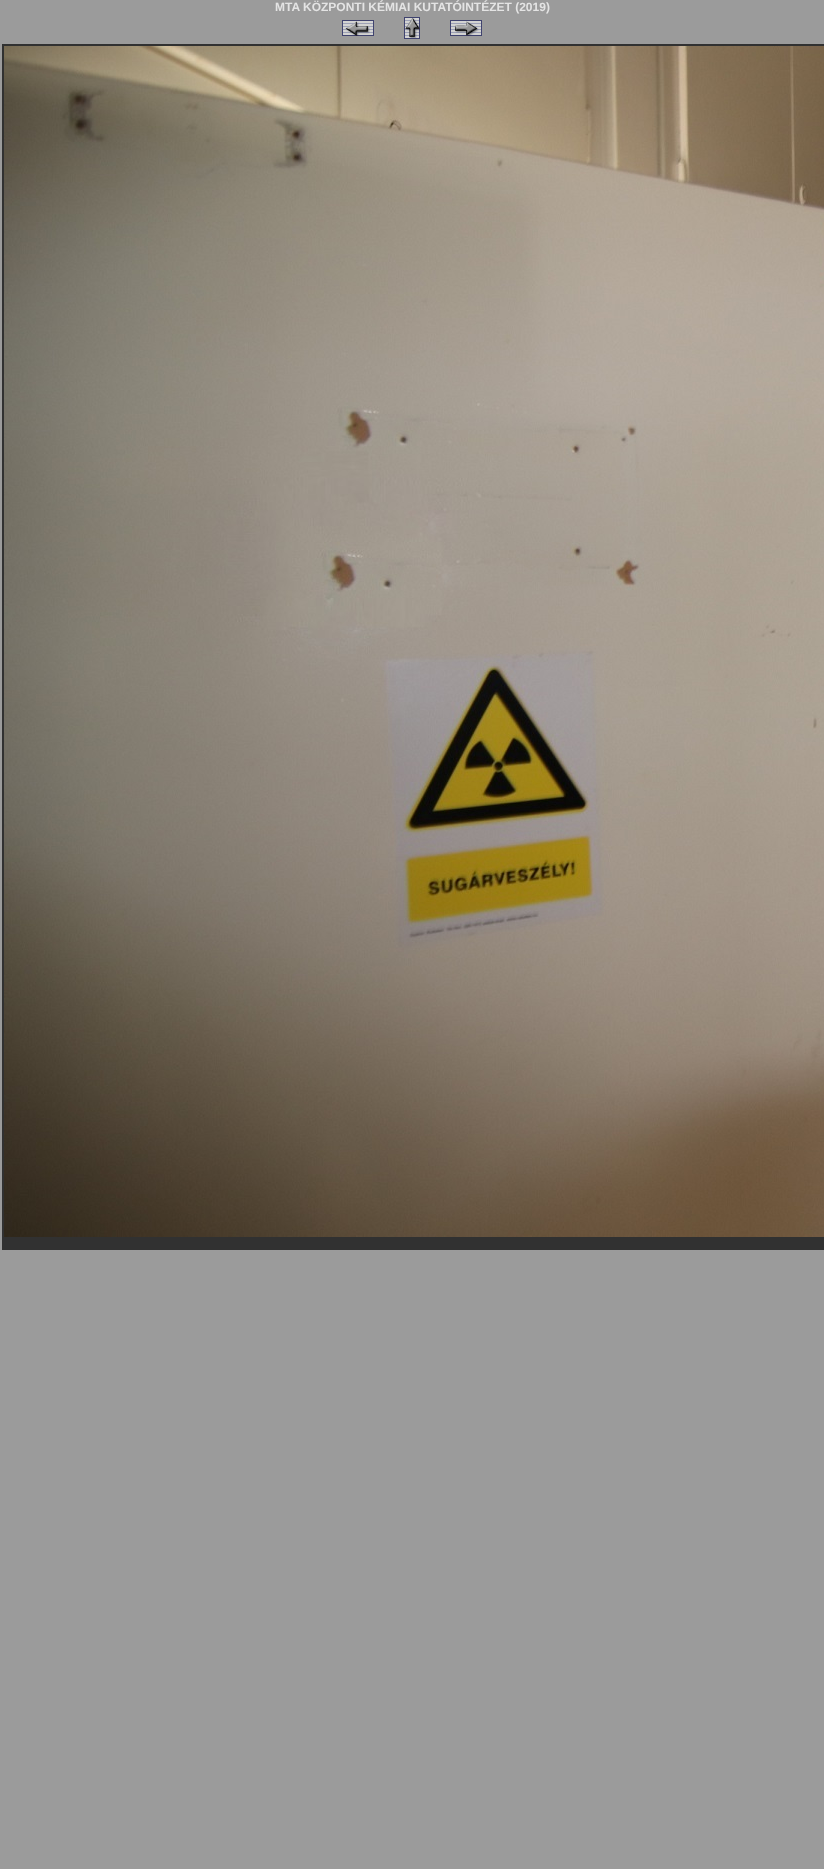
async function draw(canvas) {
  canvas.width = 824
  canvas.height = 1869
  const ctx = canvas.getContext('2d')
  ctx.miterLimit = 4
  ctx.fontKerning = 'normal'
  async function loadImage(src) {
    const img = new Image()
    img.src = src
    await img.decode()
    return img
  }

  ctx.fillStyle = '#9b9b9b'
  ctx.fillRect(0, 0, 824, 1869)
  ctx.font = 'bold 12px Liberation Sans'
  ctx.fillStyle = '#e4e4e4'
  ctx.fillText('MTA KÖZPONTI KÉMIAI KUTATÓINTÉZET (2019)', 275, 11)
  ctx.drawImage(await loadImage('image0.png'), 342, 20, 32, 16)
  ctx.drawImage(await loadImage('image1.png'), 404, 17, 16, 22)
  ctx.drawImage(await loadImage('image2.png'), 450, 20, 32, 16)
  ctx.fillStyle = '#313131'
  ctx.fillRect(2, 44, 822, 1206)
  ctx.drawImage(await loadImage('image3.png'), 4, 46, 820, 1191)
}

draw(document.querySelector('canvas'))
